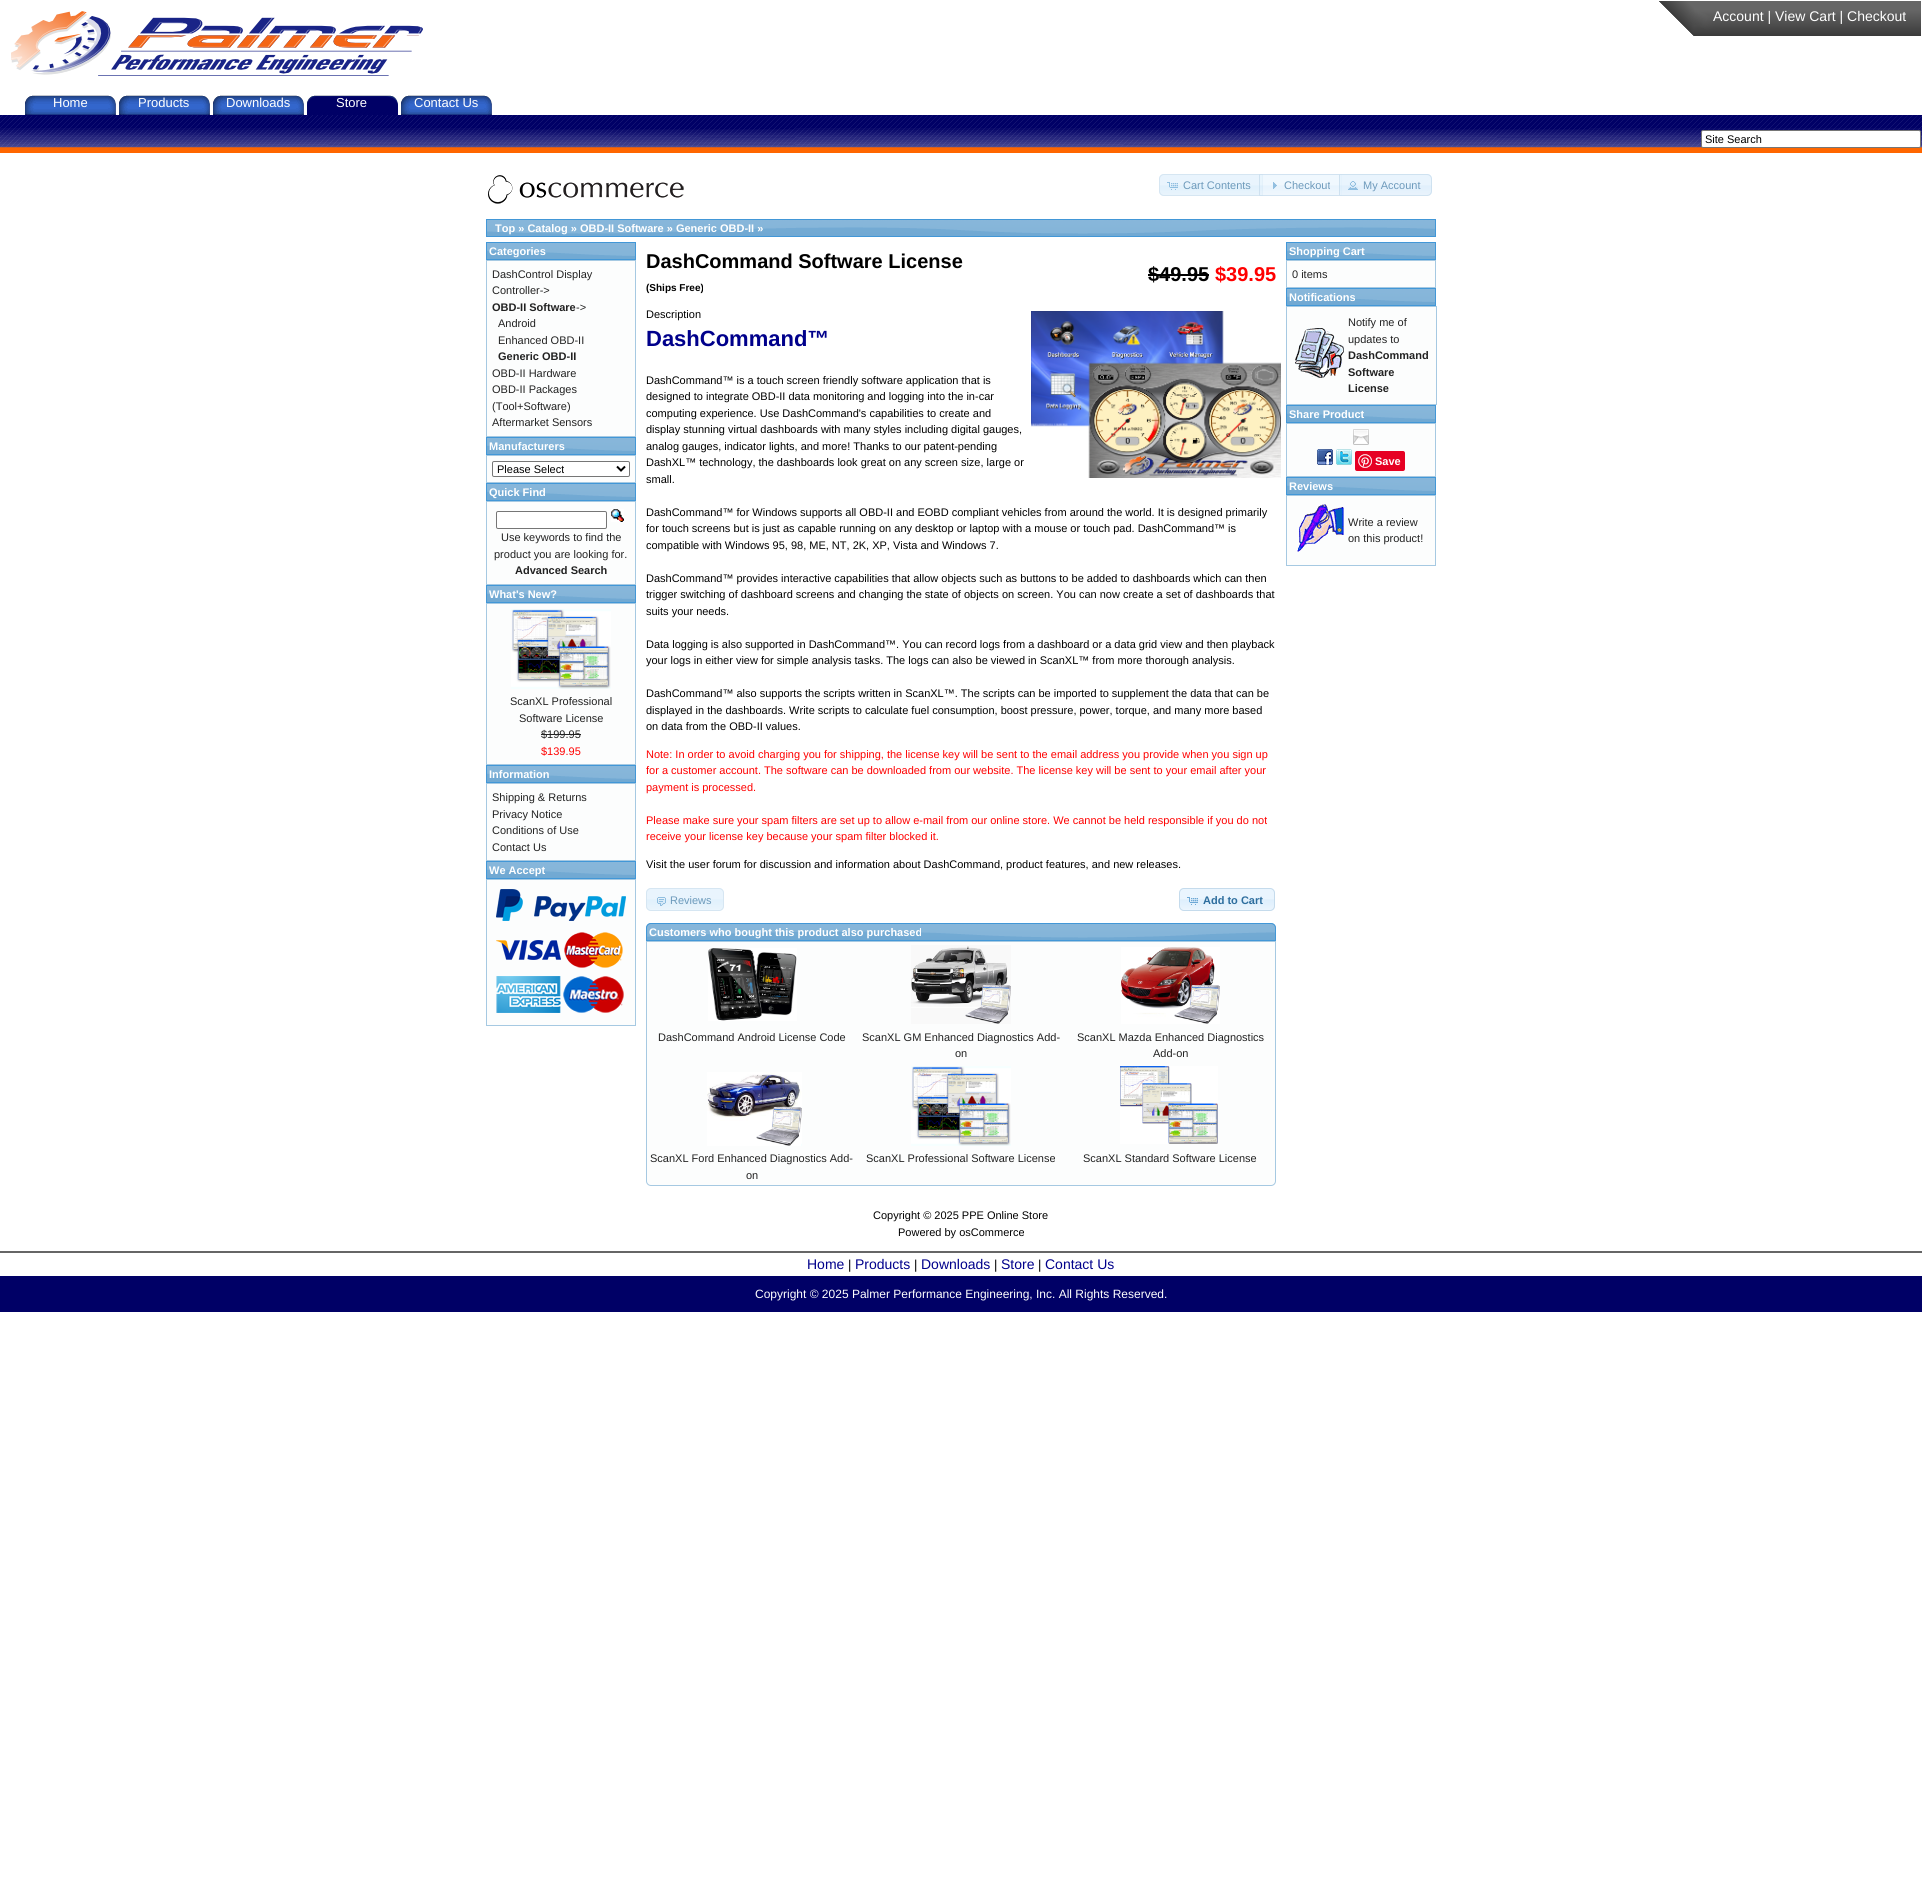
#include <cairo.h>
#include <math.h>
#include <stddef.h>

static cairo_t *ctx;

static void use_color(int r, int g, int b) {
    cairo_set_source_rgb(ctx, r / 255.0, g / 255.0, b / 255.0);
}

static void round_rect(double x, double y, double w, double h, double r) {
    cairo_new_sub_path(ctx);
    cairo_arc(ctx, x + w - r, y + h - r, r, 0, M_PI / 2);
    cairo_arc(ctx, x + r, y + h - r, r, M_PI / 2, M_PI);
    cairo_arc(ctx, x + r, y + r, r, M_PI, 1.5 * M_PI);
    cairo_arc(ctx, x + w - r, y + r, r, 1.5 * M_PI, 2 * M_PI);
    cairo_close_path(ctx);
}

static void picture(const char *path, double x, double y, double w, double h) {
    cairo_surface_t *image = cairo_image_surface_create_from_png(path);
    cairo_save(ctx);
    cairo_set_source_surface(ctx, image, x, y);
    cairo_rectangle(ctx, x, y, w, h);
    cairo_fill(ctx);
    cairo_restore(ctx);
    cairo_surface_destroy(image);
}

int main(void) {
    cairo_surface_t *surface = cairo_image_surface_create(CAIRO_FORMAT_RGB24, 1922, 1883);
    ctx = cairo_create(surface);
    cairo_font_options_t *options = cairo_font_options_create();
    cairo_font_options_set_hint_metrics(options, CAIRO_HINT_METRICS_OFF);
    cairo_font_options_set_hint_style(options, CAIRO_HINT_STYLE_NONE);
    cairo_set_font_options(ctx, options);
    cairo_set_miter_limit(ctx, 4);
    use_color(255, 255, 255);
    cairo_paint(ctx);
    picture("img1.png", 11, 11, 412, 65);
    picture("img2.png", 1658, 1, 263, 35);
    cairo_select_font_face(ctx, "Liberation Sans", CAIRO_FONT_SLANT_NORMAL, CAIRO_FONT_WEIGHT_NORMAL);
    cairo_set_font_size(ctx, 14);
    use_color(255, 255, 255);
    cairo_move_to(ctx, 1713, 21);
    cairo_show_text(ctx, "Account | View Cart | Checkout");
    picture("img3.png", 25, 95, 91, 20);
    cairo_set_font_size(ctx, 13);
    cairo_move_to(ctx, 53, 107);
    cairo_show_text(ctx, "Home");
    picture("img3.png", 119, 95, 91, 20);
    cairo_move_to(ctx, 138, 107);
    cairo_show_text(ctx, "Products");
    picture("img3.png", 213, 95, 91, 20);
    cairo_move_to(ctx, 226, 107);
    cairo_show_text(ctx, "Downloads");
    picture("img4.png", 307, 95, 91, 20);
    cairo_move_to(ctx, 336, 107);
    cairo_show_text(ctx, "Store");
    picture("img3.png", 401, 95, 91, 20);
    cairo_move_to(ctx, 414, 107);
    cairo_show_text(ctx, "Contact Us");
    picture("img5.png", 0, 115, 1922, 38);
    round_rect(1701.5, 130.5, 219, 17, 1.5);
    cairo_fill_preserve(ctx);
    use_color(118, 118, 118);
    cairo_set_line_width(ctx, 1);
    cairo_stroke(ctx);
    cairo_set_font_size(ctx, 11);
    use_color(0, 0, 0);
    cairo_move_to(ctx, 1705, 143);
    cairo_show_text(ctx, "Site Search");
    picture("img6.png", 488, 175, 196, 29);
    use_color(233, 244, 253);
    cairo_new_path(ctx);
    cairo_move_to(ctx, 1164, 174);
    cairo_line_to(ctx, 1263, 174);
    cairo_line_to(ctx, 1263, 196);
    cairo_line_to(ctx, 1164, 196);
    cairo_curve_to(ctx, 1161, 196, 1159, 194, 1159, 191);
    cairo_line_to(ctx, 1159, 179);
    cairo_curve_to(ctx, 1159, 176, 1161, 174, 1164, 174);
    cairo_close_path(ctx);
    cairo_fill(ctx);
    picture("img7.png", 1159, 185, 103, 10);
    cairo_new_path(ctx);
    cairo_move_to(ctx, 1164, 174.5);
    cairo_line_to(ctx, 1262.5, 174.5);
    cairo_line_to(ctx, 1262.5, 195.5);
    cairo_line_to(ctx, 1164, 195.5);
    cairo_curve_to(ctx, 1161.5, 195.5, 1159.5, 193.5, 1159.5, 191);
    cairo_line_to(ctx, 1159.5, 179);
    cairo_curve_to(ctx, 1159.5, 176.5, 1161.5, 174.5, 1164, 174.5);
    cairo_close_path(ctx);
    use_color(214, 230, 242);
    cairo_stroke(ctx);
    picture("img8.png", 1167, 182, 11, 8);
    use_color(109, 154, 187);
    cairo_move_to(ctx, 1183, 189);
    cairo_show_text(ctx, "Cart Contents");
    picture("img9.png", 1259, 174, 83, 22);
    cairo_rectangle(ctx, 1259.5, 174.5, 82, 21);
    cairo_set_source_rgba(ctx, 0.773, 0.859, 0.925, 0.7);
    cairo_stroke(ctx);
    picture("img10.png", 1273, 182, 4, 7);
    use_color(109, 154, 187);
    cairo_move_to(ctx, 1284, 189);
    cairo_show_text(ctx, "Checkout");
    cairo_set_source_rgba(ctx, 0.875, 0.937, 0.988, 0.7);
    cairo_new_path(ctx);
    cairo_move_to(ctx, 1339, 174);
    cairo_line_to(ctx, 1427, 174);
    cairo_curve_to(ctx, 1430, 174, 1432, 176, 1432, 179);
    cairo_line_to(ctx, 1432, 191);
    cairo_curve_to(ctx, 1432, 194, 1430, 196, 1427, 196);
    cairo_line_to(ctx, 1339, 196);
    cairo_close_path(ctx);
    cairo_fill(ctx);
    picture("img11.png", 1339, 174, 93, 22);
    cairo_new_path(ctx);
    cairo_move_to(ctx, 1339.5, 174.5);
    cairo_line_to(ctx, 1427, 174.5);
    cairo_curve_to(ctx, 1429.5, 174.5, 1431.5, 176.5, 1431.5, 179);
    cairo_line_to(ctx, 1431.5, 191);
    cairo_curve_to(ctx, 1431.5, 193.5, 1429.5, 195.5, 1427, 195.5);
    cairo_line_to(ctx, 1339.5, 195.5);
    cairo_close_path(ctx);
    cairo_set_source_rgba(ctx, 0.773, 0.859, 0.925, 0.7);
    cairo_stroke(ctx);
    picture("img12.png", 1348, 181, 10, 9);
    use_color(109, 154, 187);
    cairo_move_to(ctx, 1363, 189);
    cairo_show_text(ctx, "My Account");
    picture("img13.png", 487, 220, 948, 16);
    cairo_rectangle(ctx, 486.5, 219.5, 949, 17);
    use_color(66, 151, 215);
    cairo_stroke(ctx);
    cairo_select_font_face(ctx, "Liberation Sans", CAIRO_FONT_SLANT_NORMAL, CAIRO_FONT_WEIGHT_BOLD);
    use_color(255, 255, 255);
    cairo_move_to(ctx, 495, 232);
    cairo_show_text(ctx, "Top » Catalog » OBD-II Software » Generic OBD-II »");
    picture("img14.png", 487, 243, 148, 16);
    cairo_rectangle(ctx, 486.5, 242.5, 149, 17);
    use_color(66, 151, 215);
    cairo_stroke(ctx);
    use_color(255, 255, 255);
    cairo_move_to(ctx, 489, 255);
    cairo_show_text(ctx, "Categories");
    use_color(252, 253, 253);
    cairo_rectangle(ctx, 486.5, 260.5, 149, 176);
    cairo_fill_preserve(ctx);
    use_color(166, 201, 226);
    cairo_stroke(ctx);
    cairo_select_font_face(ctx, "Liberation Sans", CAIRO_FONT_SLANT_NORMAL, CAIRO_FONT_WEIGHT_NORMAL);
    use_color(34, 34, 34);
    cairo_move_to(ctx, 492, 278);
    cairo_show_text(ctx, "DashControl Display");
    cairo_move_to(ctx, 492, 294);
    cairo_show_text(ctx, "Controller->");
    cairo_select_font_face(ctx, "Liberation Sans", CAIRO_FONT_SLANT_NORMAL, CAIRO_FONT_WEIGHT_BOLD);
    cairo_move_to(ctx, 492, 311);
    cairo_show_text(ctx, "OBD-II Software");
    cairo_select_font_face(ctx, "Liberation Sans", CAIRO_FONT_SLANT_NORMAL, CAIRO_FONT_WEIGHT_NORMAL);
    cairo_move_to(ctx, 576, 311);
    cairo_show_text(ctx, "->");
    cairo_move_to(ctx, 498, 327);
    cairo_show_text(ctx, "Android");
    cairo_move_to(ctx, 498, 344);
    cairo_show_text(ctx, "Enhanced OBD-II");
    cairo_select_font_face(ctx, "Liberation Sans", CAIRO_FONT_SLANT_NORMAL, CAIRO_FONT_WEIGHT_BOLD);
    cairo_move_to(ctx, 498, 360);
    cairo_show_text(ctx, "Generic OBD-II");
    cairo_select_font_face(ctx, "Liberation Sans", CAIRO_FONT_SLANT_NORMAL, CAIRO_FONT_WEIGHT_NORMAL);
    cairo_move_to(ctx, 492, 377);
    cairo_show_text(ctx, "OBD-II Hardware");
    cairo_move_to(ctx, 492, 393);
    cairo_show_text(ctx, "OBD-II Packages");
    cairo_move_to(ctx, 492, 410);
    cairo_show_text(ctx, "(Tool+Software)");
    cairo_move_to(ctx, 492, 426);
    cairo_show_text(ctx, "Aftermarket Sensors");
    picture("img14.png", 487, 438, 148, 16);
    cairo_rectangle(ctx, 486.5, 437.5, 149, 17);
    use_color(66, 151, 215);
    cairo_stroke(ctx);
    cairo_select_font_face(ctx, "Liberation Sans", CAIRO_FONT_SLANT_NORMAL, CAIRO_FONT_WEIGHT_BOLD);
    use_color(255, 255, 255);
    cairo_move_to(ctx, 489, 450);
    cairo_show_text(ctx, "Manufacturers");
    use_color(252, 253, 253);
    cairo_rectangle(ctx, 486.5, 455.5, 149, 27);
    cairo_fill_preserve(ctx);
    use_color(166, 201, 226);
    cairo_stroke(ctx);
    use_color(255, 255, 255);
    round_rect(492.5, 461.5, 137, 15, 1.5);
    cairo_fill_preserve(ctx);
    use_color(118, 118, 118);
    cairo_stroke(ctx);
    cairo_new_path(ctx);
    cairo_move_to(ctx, 617, 466.5);
    cairo_line_to(ctx, 621, 470.5);
    cairo_line_to(ctx, 625, 466.5);
    use_color(0, 0, 0);
    cairo_set_line_width(ctx, 2);
    cairo_stroke(ctx);
    cairo_select_font_face(ctx, "Liberation Sans", CAIRO_FONT_SLANT_NORMAL, CAIRO_FONT_WEIGHT_NORMAL);
    cairo_move_to(ctx, 497, 473);
    cairo_show_text(ctx, "Please Select");
    picture("img14.png", 487, 484, 148, 16);
    cairo_rectangle(ctx, 486.5, 483.5, 149, 17);
    use_color(66, 151, 215);
    cairo_set_line_width(ctx, 1);
    cairo_stroke(ctx);
    cairo_select_font_face(ctx, "Liberation Sans", CAIRO_FONT_SLANT_NORMAL, CAIRO_FONT_WEIGHT_BOLD);
    use_color(255, 255, 255);
    cairo_move_to(ctx, 489, 496);
    cairo_show_text(ctx, "Quick Find");
    use_color(252, 253, 253);
    cairo_rectangle(ctx, 486.5, 501.5, 149, 83);
    cairo_fill_preserve(ctx);
    use_color(166, 201, 226);
    cairo_stroke(ctx);
    use_color(255, 255, 255);
    round_rect(496.5, 511.5, 110, 17, 1.5);
    cairo_fill_preserve(ctx);
    use_color(118, 118, 118);
    cairo_stroke(ctx);
    picture("img15.png", 611, 509, 13, 13);
    cairo_select_font_face(ctx, "Liberation Sans", CAIRO_FONT_SLANT_NORMAL, CAIRO_FONT_WEIGHT_NORMAL);
    use_color(34, 34, 34);
    cairo_move_to(ctx, 501, 541);
    cairo_show_text(ctx, "Use keywords to find the");
    cairo_move_to(ctx, 494, 558);
    cairo_show_text(ctx, "product you are looking for.");
    cairo_select_font_face(ctx, "Liberation Sans", CAIRO_FONT_SLANT_NORMAL, CAIRO_FONT_WEIGHT_BOLD);
    cairo_move_to(ctx, 515, 574);
    cairo_show_text(ctx, "Advanced Search");
    picture("img14.png", 487, 586, 148, 16);
    cairo_rectangle(ctx, 486.5, 585.5, 149, 17);
    use_color(66, 151, 215);
    cairo_stroke(ctx);
    use_color(255, 255, 255);
    cairo_move_to(ctx, 489, 598);
    cairo_show_text(ctx, "What's New?");
    use_color(252, 253, 253);
    cairo_rectangle(ctx, 486.5, 603.5, 149, 161);
    cairo_fill_preserve(ctx);
    use_color(166, 201, 226);
    cairo_stroke(ctx);
    picture("img16.png", 511, 609, 100, 80);
    cairo_select_font_face(ctx, "Liberation Sans", CAIRO_FONT_SLANT_NORMAL, CAIRO_FONT_WEIGHT_NORMAL);
    use_color(34, 34, 34);
    cairo_move_to(ctx, 510, 705);
    cairo_show_text(ctx, "ScanXL Professional");
    cairo_move_to(ctx, 519, 722);
    cairo_show_text(ctx, "Software License");
    cairo_move_to(ctx, 541, 738);
    cairo_show_text(ctx, "$199.95");
    cairo_rectangle(ctx, 541, 734, 40, 1);
    cairo_fill(ctx);
    use_color(255, 0, 0);
    cairo_move_to(ctx, 541, 755);
    cairo_show_text(ctx, "$139.95");
    picture("img14.png", 487, 766, 148, 16);
    cairo_rectangle(ctx, 486.5, 765.5, 149, 17);
    use_color(66, 151, 215);
    cairo_stroke(ctx);
    cairo_select_font_face(ctx, "Liberation Sans", CAIRO_FONT_SLANT_NORMAL, CAIRO_FONT_WEIGHT_BOLD);
    use_color(255, 255, 255);
    cairo_move_to(ctx, 489, 778);
    cairo_show_text(ctx, "Information");
    use_color(252, 253, 253);
    cairo_rectangle(ctx, 486.5, 783.5, 149, 77);
    cairo_fill_preserve(ctx);
    use_color(166, 201, 226);
    cairo_stroke(ctx);
    cairo_select_font_face(ctx, "Liberation Sans", CAIRO_FONT_SLANT_NORMAL, CAIRO_FONT_WEIGHT_NORMAL);
    use_color(34, 34, 34);
    cairo_move_to(ctx, 492, 801);
    cairo_show_text(ctx, "Shipping & Returns");
    cairo_move_to(ctx, 492, 818);
    cairo_show_text(ctx, "Privacy Notice");
    cairo_move_to(ctx, 492, 834);
    cairo_show_text(ctx, "Conditions of Use");
    cairo_move_to(ctx, 492, 851);
    cairo_show_text(ctx, "Contact Us");
    picture("img14.png", 487, 862, 148, 16);
    cairo_rectangle(ctx, 486.5, 861.5, 149, 17);
    use_color(66, 151, 215);
    cairo_stroke(ctx);
    cairo_select_font_face(ctx, "Liberation Sans", CAIRO_FONT_SLANT_NORMAL, CAIRO_FONT_WEIGHT_BOLD);
    use_color(255, 255, 255);
    cairo_move_to(ctx, 489, 874);
    cairo_show_text(ctx, "We Accept");
    use_color(252, 253, 253);
    cairo_rectangle(ctx, 486.5, 879.5, 149, 146);
    cairo_fill_preserve(ctx);
    use_color(166, 201, 226);
    cairo_stroke(ctx);
    picture("img17.png", 496, 889, 130, 32);
    picture("img18.png", 496, 940, 65, 20);
    picture("img19.png", 564, 932, 59, 36);
    picture("img20.png", 496, 976, 65, 37);
    picture("img21.png", 563, 976, 61, 37);
    cairo_set_font_size(ctx, 20);
    use_color(0, 0, 0);
    cairo_move_to(ctx, 646, 268);
    cairo_show_text(ctx, "DashCommand Software License");
    cairo_set_font_size(ctx, 10);
    cairo_move_to(ctx, 646, 291);
    cairo_show_text(ctx, "(Ships Free)");
    cairo_set_font_size(ctx, 20);
    cairo_move_to(ctx, 1148, 281);
    cairo_show_text(ctx, "$49.95");
    cairo_rectangle(ctx, 1148, 274, 61, 2);
    cairo_fill(ctx);
    use_color(255, 0, 0);
    cairo_move_to(ctx, 1215, 281);
    cairo_show_text(ctx, "$39.95");
    cairo_select_font_face(ctx, "Liberation Sans", CAIRO_FONT_SLANT_NORMAL, CAIRO_FONT_WEIGHT_NORMAL);
    cairo_set_font_size(ctx, 11);
    use_color(0, 0, 0);
    cairo_move_to(ctx, 646, 318);
    cairo_show_text(ctx, "Description");
    cairo_select_font_face(ctx, "Liberation Sans", CAIRO_FONT_SLANT_NORMAL, CAIRO_FONT_WEIGHT_BOLD);
    cairo_set_font_size(ctx, 22);
    use_color(0, 0, 139);
    cairo_move_to(ctx, 646, 346);
    cairo_show_text(ctx, "DashCommand™");
    cairo_select_font_face(ctx, "Liberation Sans", CAIRO_FONT_SLANT_NORMAL, CAIRO_FONT_WEIGHT_NORMAL);
    cairo_set_font_size(ctx, 11);
    use_color(0, 0, 0);
    cairo_move_to(ctx, 646, 384);
    cairo_show_text(ctx, "DashCommand™ is a touch screen friendly software application that is");
    cairo_move_to(ctx, 646, 400);
    cairo_show_text(ctx, "designed to integrate OBD-II data monitoring and logging into the in-car");
    cairo_move_to(ctx, 646, 417);
    cairo_show_text(ctx, "computing experience. Use DashCommand's capabilities to create and");
    cairo_move_to(ctx, 646, 433);
    cairo_show_text(ctx, "display stunning virtual dashboards with many styles including digital gauges,");
    cairo_move_to(ctx, 646, 450);
    cairo_show_text(ctx, "analog gauges, indicator lights, and more! Thanks to our patent-pending");
    cairo_move_to(ctx, 646, 466);
    cairo_show_text(ctx, "DashXL™ technology, the dashboards look great on any screen size, large or");
    cairo_move_to(ctx, 646, 483);
    cairo_show_text(ctx, "small.");
    cairo_move_to(ctx, 646, 516);
    cairo_show_text(ctx, "DashCommand™ for Windows supports all OBD-II and EOBD compliant vehicles from around the world. It is designed primarily");
    cairo_move_to(ctx, 646, 532);
    cairo_show_text(ctx, "for touch screens but is just as capable running on any desktop or laptop with a mouse or touch pad. DashCommand™ is");
    cairo_move_to(ctx, 646, 549);
    cairo_show_text(ctx, "compatible with Windows 95, 98, ME, NT, 2K, XP, Vista and Windows 7.");
    cairo_move_to(ctx, 646, 582);
    cairo_show_text(ctx, "DashCommand™ provides interactive capabilities that allow objects such as buttons to be added to dashboards which can then");
    cairo_move_to(ctx, 646, 598);
    cairo_show_text(ctx, "trigger switching of dashboard screens and changing the state of objects on screen. You can now create a set of dashboards that");
    cairo_move_to(ctx, 646, 615);
    cairo_show_text(ctx, "suits your needs.");
    cairo_move_to(ctx, 646, 648);
    cairo_show_text(ctx, "Data logging is also supported in DashCommand™. You can record logs from a dashboard or a data grid view and then playback");
    cairo_move_to(ctx, 646, 664);
    cairo_show_text(ctx, "your logs in either view for simple analysis tasks. The logs can also be viewed in ScanXL™ from more thorough analysis.");
    cairo_move_to(ctx, 646, 697);
    cairo_show_text(ctx, "DashCommand™ also supports the scripts written in ScanXL™. The scripts can be imported to supplement the data that can be");
    cairo_move_to(ctx, 646, 714);
    cairo_show_text(ctx, "displayed in the dashboards. Write scripts to calculate fuel consumption, boost pressure, power, torque, and many more based");
    cairo_move_to(ctx, 646, 730);
    cairo_show_text(ctx, "on data from the OBD-II values.");
    use_color(255, 0, 0);
    cairo_move_to(ctx, 646, 758);
    cairo_show_text(ctx, "Note: In order to avoid charging you for shipping, the license key will be sent to the email address you provide when you sign up");
    cairo_move_to(ctx, 646, 774);
    cairo_show_text(ctx, "for a customer account. The software can be downloaded from our website. The license key will be sent to your email after your");
    cairo_move_to(ctx, 646, 791);
    cairo_show_text(ctx, "payment is processed.");
    cairo_move_to(ctx, 646, 824);
    cairo_show_text(ctx, "Please make sure your spam filters are set up to allow e-mail from our online store. We cannot be held responsible if you do not");
    cairo_move_to(ctx, 646, 840);
    cairo_show_text(ctx, "receive your license key because your spam filter blocked it.");
    use_color(0, 0, 0);
    cairo_move_to(ctx, 646, 868);
    cairo_show_text(ctx, "Visit the user forum for discussion and information about DashCommand, product features, and new releases.");
    picture("img22.png", 1031, 311, 250, 167);
    use_color(233, 244, 253);
    round_rect(646, 888, 78, 23, 5);
    cairo_fill(ctx);
    picture("img23.png", 646, 899, 78, 11);
    round_rect(646.5, 888.5, 77, 22, 4.5);
    use_color(214, 230, 242);
    cairo_stroke(ctx);
    picture("img24.png", 657, 897, 9, 9);
    use_color(109, 154, 187);
    cairo_move_to(ctx, 670, 904);
    cairo_show_text(ctx, "Reviews");
    picture("img25.png", 1179, 888, 96, 23);
    round_rect(1179.5, 888.5, 95, 22, 4.5);
    use_color(197, 219, 236);
    cairo_stroke(ctx);
    picture("img26.png", 1187, 897, 11, 8);
    cairo_select_font_face(ctx, "Liberation Sans", CAIRO_FONT_SLANT_NORMAL, CAIRO_FONT_WEIGHT_BOLD);
    use_color(46, 110, 158);
    cairo_move_to(ctx, 1203, 904);
    cairo_show_text(ctx, "Add to Cart");
    picture("img27.png", 646, 923, 630, 17);
    cairo_new_path(ctx);
    cairo_move_to(ctx, 651, 923.5);
    cairo_line_to(ctx, 1271, 923.5);
    cairo_curve_to(ctx, 1273.5, 923.5, 1275.5, 925.5, 1275.5, 928);
    cairo_line_to(ctx, 1275.5, 940.5);
    cairo_line_to(ctx, 646.5, 940.5);
    cairo_line_to(ctx, 646.5, 928);
    cairo_curve_to(ctx, 646.5, 925.5, 648.5, 923.5, 651, 923.5);
    cairo_close_path(ctx);
    use_color(66, 151, 215);
    cairo_stroke(ctx);
    use_color(255, 255, 255);
    cairo_move_to(ctx, 649, 936);
    cairo_show_text(ctx, "Customers who bought this product also purchased");
    use_color(252, 253, 253);
    cairo_new_path(ctx);
    cairo_move_to(ctx, 646.5, 941.5);
    cairo_line_to(ctx, 1275.5, 941.5);
    cairo_line_to(ctx, 1275.5, 1181);
    cairo_curve_to(ctx, 1275.5, 1183.5, 1273.5, 1185.5, 1271, 1185.5);
    cairo_line_to(ctx, 651, 1185.5);
    cairo_curve_to(ctx, 648.5, 1185.5, 646.5, 1183.5, 646.5, 1181);
    cairo_close_path(ctx);
    cairo_fill_preserve(ctx);
    use_color(166, 201, 226);
    cairo_stroke(ctx);
    picture("img28.png", 708, 948, 89, 73);
    cairo_select_font_face(ctx, "Liberation Sans", CAIRO_FONT_SLANT_NORMAL, CAIRO_FONT_WEIGHT_NORMAL);
    use_color(34, 34, 34);
    cairo_move_to(ctx, 658, 1041);
    cairo_show_text(ctx, "DashCommand Android License Code");
    picture("img29.png", 911, 945, 100, 79);
    cairo_move_to(ctx, 862, 1041);
    cairo_show_text(ctx, "ScanXL GM Enhanced Diagnostics Add-");
    cairo_move_to(ctx, 955, 1057);
    cairo_show_text(ctx, "on");
    picture("img30.png", 1121, 947, 99, 77);
    cairo_move_to(ctx, 1077, 1041);
    cairo_show_text(ctx, "ScanXL Mazda Enhanced Diagnostics");
    cairo_move_to(ctx, 1153, 1057);
    cairo_show_text(ctx, "Add-on");
    picture("img31.png", 707, 1072, 95, 74);
    cairo_move_to(ctx, 650, 1162);
    cairo_show_text(ctx, "ScanXL Ford Enhanced Diagnostics Add-");
    cairo_move_to(ctx, 746, 1179);
    cairo_show_text(ctx, "on");
    picture("img16.png", 911, 1066, 100, 80);
    cairo_move_to(ctx, 866, 1162);
    cairo_show_text(ctx, "ScanXL Professional Software License");
    picture("img32.png", 1120, 1066, 98, 78);
    cairo_move_to(ctx, 1083, 1162);
    cairo_show_text(ctx, "ScanXL Standard Software License");
    picture("img14.png", 1287, 243, 148, 16);
    cairo_rectangle(ctx, 1286.5, 242.5, 149, 17);
    use_color(66, 151, 215);
    cairo_stroke(ctx);
    cairo_select_font_face(ctx, "Liberation Sans", CAIRO_FONT_SLANT_NORMAL, CAIRO_FONT_WEIGHT_BOLD);
    use_color(255, 255, 255);
    cairo_move_to(ctx, 1289, 255);
    cairo_show_text(ctx, "Shopping Cart");
    use_color(252, 253, 253);
    cairo_rectangle(ctx, 1286.5, 260.5, 149, 27);
    cairo_fill_preserve(ctx);
    use_color(166, 201, 226);
    cairo_stroke(ctx);
    cairo_select_font_face(ctx, "Liberation Sans", CAIRO_FONT_SLANT_NORMAL, CAIRO_FONT_WEIGHT_NORMAL);
    use_color(34, 34, 34);
    cairo_move_to(ctx, 1292, 278);
    cairo_show_text(ctx, "0 items");
    picture("img14.png", 1287, 289, 148, 16);
    cairo_rectangle(ctx, 1286.5, 288.5, 149, 17);
    use_color(66, 151, 215);
    cairo_stroke(ctx);
    cairo_select_font_face(ctx, "Liberation Sans", CAIRO_FONT_SLANT_NORMAL, CAIRO_FONT_WEIGHT_BOLD);
    use_color(255, 255, 255);
    cairo_move_to(ctx, 1289, 301);
    cairo_show_text(ctx, "Notifications");
    use_color(252, 253, 253);
    cairo_rectangle(ctx, 1286.5, 306.5, 150, 98);
    cairo_fill_preserve(ctx);
    use_color(166, 201, 226);
    cairo_stroke(ctx);
    picture("img33.png", 1295, 328, 49, 50);
    cairo_select_font_face(ctx, "Liberation Sans", CAIRO_FONT_SLANT_NORMAL, CAIRO_FONT_WEIGHT_NORMAL);
    use_color(34, 34, 34);
    cairo_move_to(ctx, 1348, 326);
    cairo_show_text(ctx, "Notify me of");
    cairo_move_to(ctx, 1348, 343);
    cairo_show_text(ctx, "updates to");
    cairo_select_font_face(ctx, "Liberation Sans", CAIRO_FONT_SLANT_NORMAL, CAIRO_FONT_WEIGHT_BOLD);
    cairo_move_to(ctx, 1348, 359);
    cairo_show_text(ctx, "DashCommand");
    cairo_move_to(ctx, 1348, 376);
    cairo_show_text(ctx, "Software");
    cairo_move_to(ctx, 1348, 392);
    cairo_show_text(ctx, "License");
    picture("img14.png", 1287, 406, 148, 16);
    cairo_rectangle(ctx, 1286.5, 405.5, 149, 17);
    use_color(66, 151, 215);
    cairo_stroke(ctx);
    use_color(255, 255, 255);
    cairo_move_to(ctx, 1289, 418);
    cairo_show_text(ctx, "Share Product");
    use_color(252, 253, 253);
    cairo_rectangle(ctx, 1286.5, 423.5, 149, 53);
    cairo_fill_preserve(ctx);
    use_color(166, 201, 226);
    cairo_stroke(ctx);
    picture("img34.png", 1353, 429, 16, 16);
    picture("img35.png", 1317, 449, 16, 16);
    picture("img36.png", 1336, 449, 16, 16);
    use_color(230, 0, 35);
    round_rect(1355, 451, 50, 20, 2);
    cairo_fill(ctx);
    picture("img37.png", 1358, 454, 14, 14);
    use_color(255, 255, 255);
    cairo_move_to(ctx, 1375, 465);
    cairo_show_text(ctx, "Save");
    picture("img14.png", 1287, 478, 148, 16);
    cairo_rectangle(ctx, 1286.5, 477.5, 149, 17);
    use_color(66, 151, 215);
    cairo_stroke(ctx);
    use_color(255, 255, 255);
    cairo_move_to(ctx, 1289, 490);
    cairo_show_text(ctx, "Reviews");
    use_color(252, 253, 253);
    cairo_rectangle(ctx, 1286.5, 495.5, 149, 70);
    cairo_fill_preserve(ctx);
    use_color(166, 201, 226);
    cairo_stroke(ctx);
    picture("img38.png", 1297, 504, 47, 48);
    cairo_select_font_face(ctx, "Liberation Sans", CAIRO_FONT_SLANT_NORMAL, CAIRO_FONT_WEIGHT_NORMAL);
    use_color(34, 34, 34);
    cairo_move_to(ctx, 1348, 526);
    cairo_show_text(ctx, "Write a review");
    cairo_move_to(ctx, 1348, 542);
    cairo_show_text(ctx, "on this product!");
    use_color(0, 0, 0);
    cairo_move_to(ctx, 873, 1219);
    cairo_show_text(ctx, "Copyright © 2025 PPE Online Store");
    cairo_move_to(ctx, 898, 1236);
    cairo_show_text(ctx, "Powered by osCommerce");
    use_color(102, 102, 102);
    cairo_rectangle(ctx, 0, 1251, 1922, 2);
    cairo_fill(ctx);
    cairo_set_font_size(ctx, 14);
    use_color(0, 0, 139);
    cairo_move_to(ctx, 807, 1269);
    cairo_show_text(ctx, "Home");
    cairo_set_font_size(ctx, 13);
    use_color(0, 0, 0);
    cairo_move_to(ctx, 848, 1269);
    cairo_show_text(ctx, "|");
    cairo_set_font_size(ctx, 14);
    use_color(0, 0, 139);
    cairo_move_to(ctx, 855, 1269);
    cairo_show_text(ctx, "Products");
    cairo_set_font_size(ctx, 13);
    use_color(0, 0, 0);
    cairo_move_to(ctx, 914, 1269);
    cairo_show_text(ctx, "|");
    cairo_set_font_size(ctx, 14);
    use_color(0, 0, 139);
    cairo_move_to(ctx, 921, 1269);
    cairo_show_text(ctx, "Downloads");
    cairo_set_font_size(ctx, 13);
    use_color(0, 0, 0);
    cairo_move_to(ctx, 994, 1269);
    cairo_show_text(ctx, "|");
    cairo_set_font_size(ctx, 14);
    use_color(0, 0, 139);
    cairo_move_to(ctx, 1001, 1269);
    cairo_show_text(ctx, "Store");
    cairo_set_font_size(ctx, 13);
    use_color(0, 0, 0);
    cairo_move_to(ctx, 1038, 1269);
    cairo_show_text(ctx, "|");
    cairo_set_font_size(ctx, 14);
    use_color(0, 0, 139);
    cairo_move_to(ctx, 1045, 1269);
    cairo_show_text(ctx, "Contact Us");
    use_color(0, 0, 102);
    cairo_rectangle(ctx, 0, 1276, 1922, 36);
    cairo_fill(ctx);
    cairo_set_font_size(ctx, 12);
    use_color(255, 255, 255);
    cairo_move_to(ctx, 755, 1298);
    cairo_show_text(ctx, "Copyright © 2025 Palmer Performance Engineering, Inc. All Rights Reserved.");
    cairo_surface_write_to_png(surface, "result.png");
    cairo_font_options_destroy(options);
    cairo_destroy(ctx);
    cairo_surface_destroy(surface);
    return 0;
}
